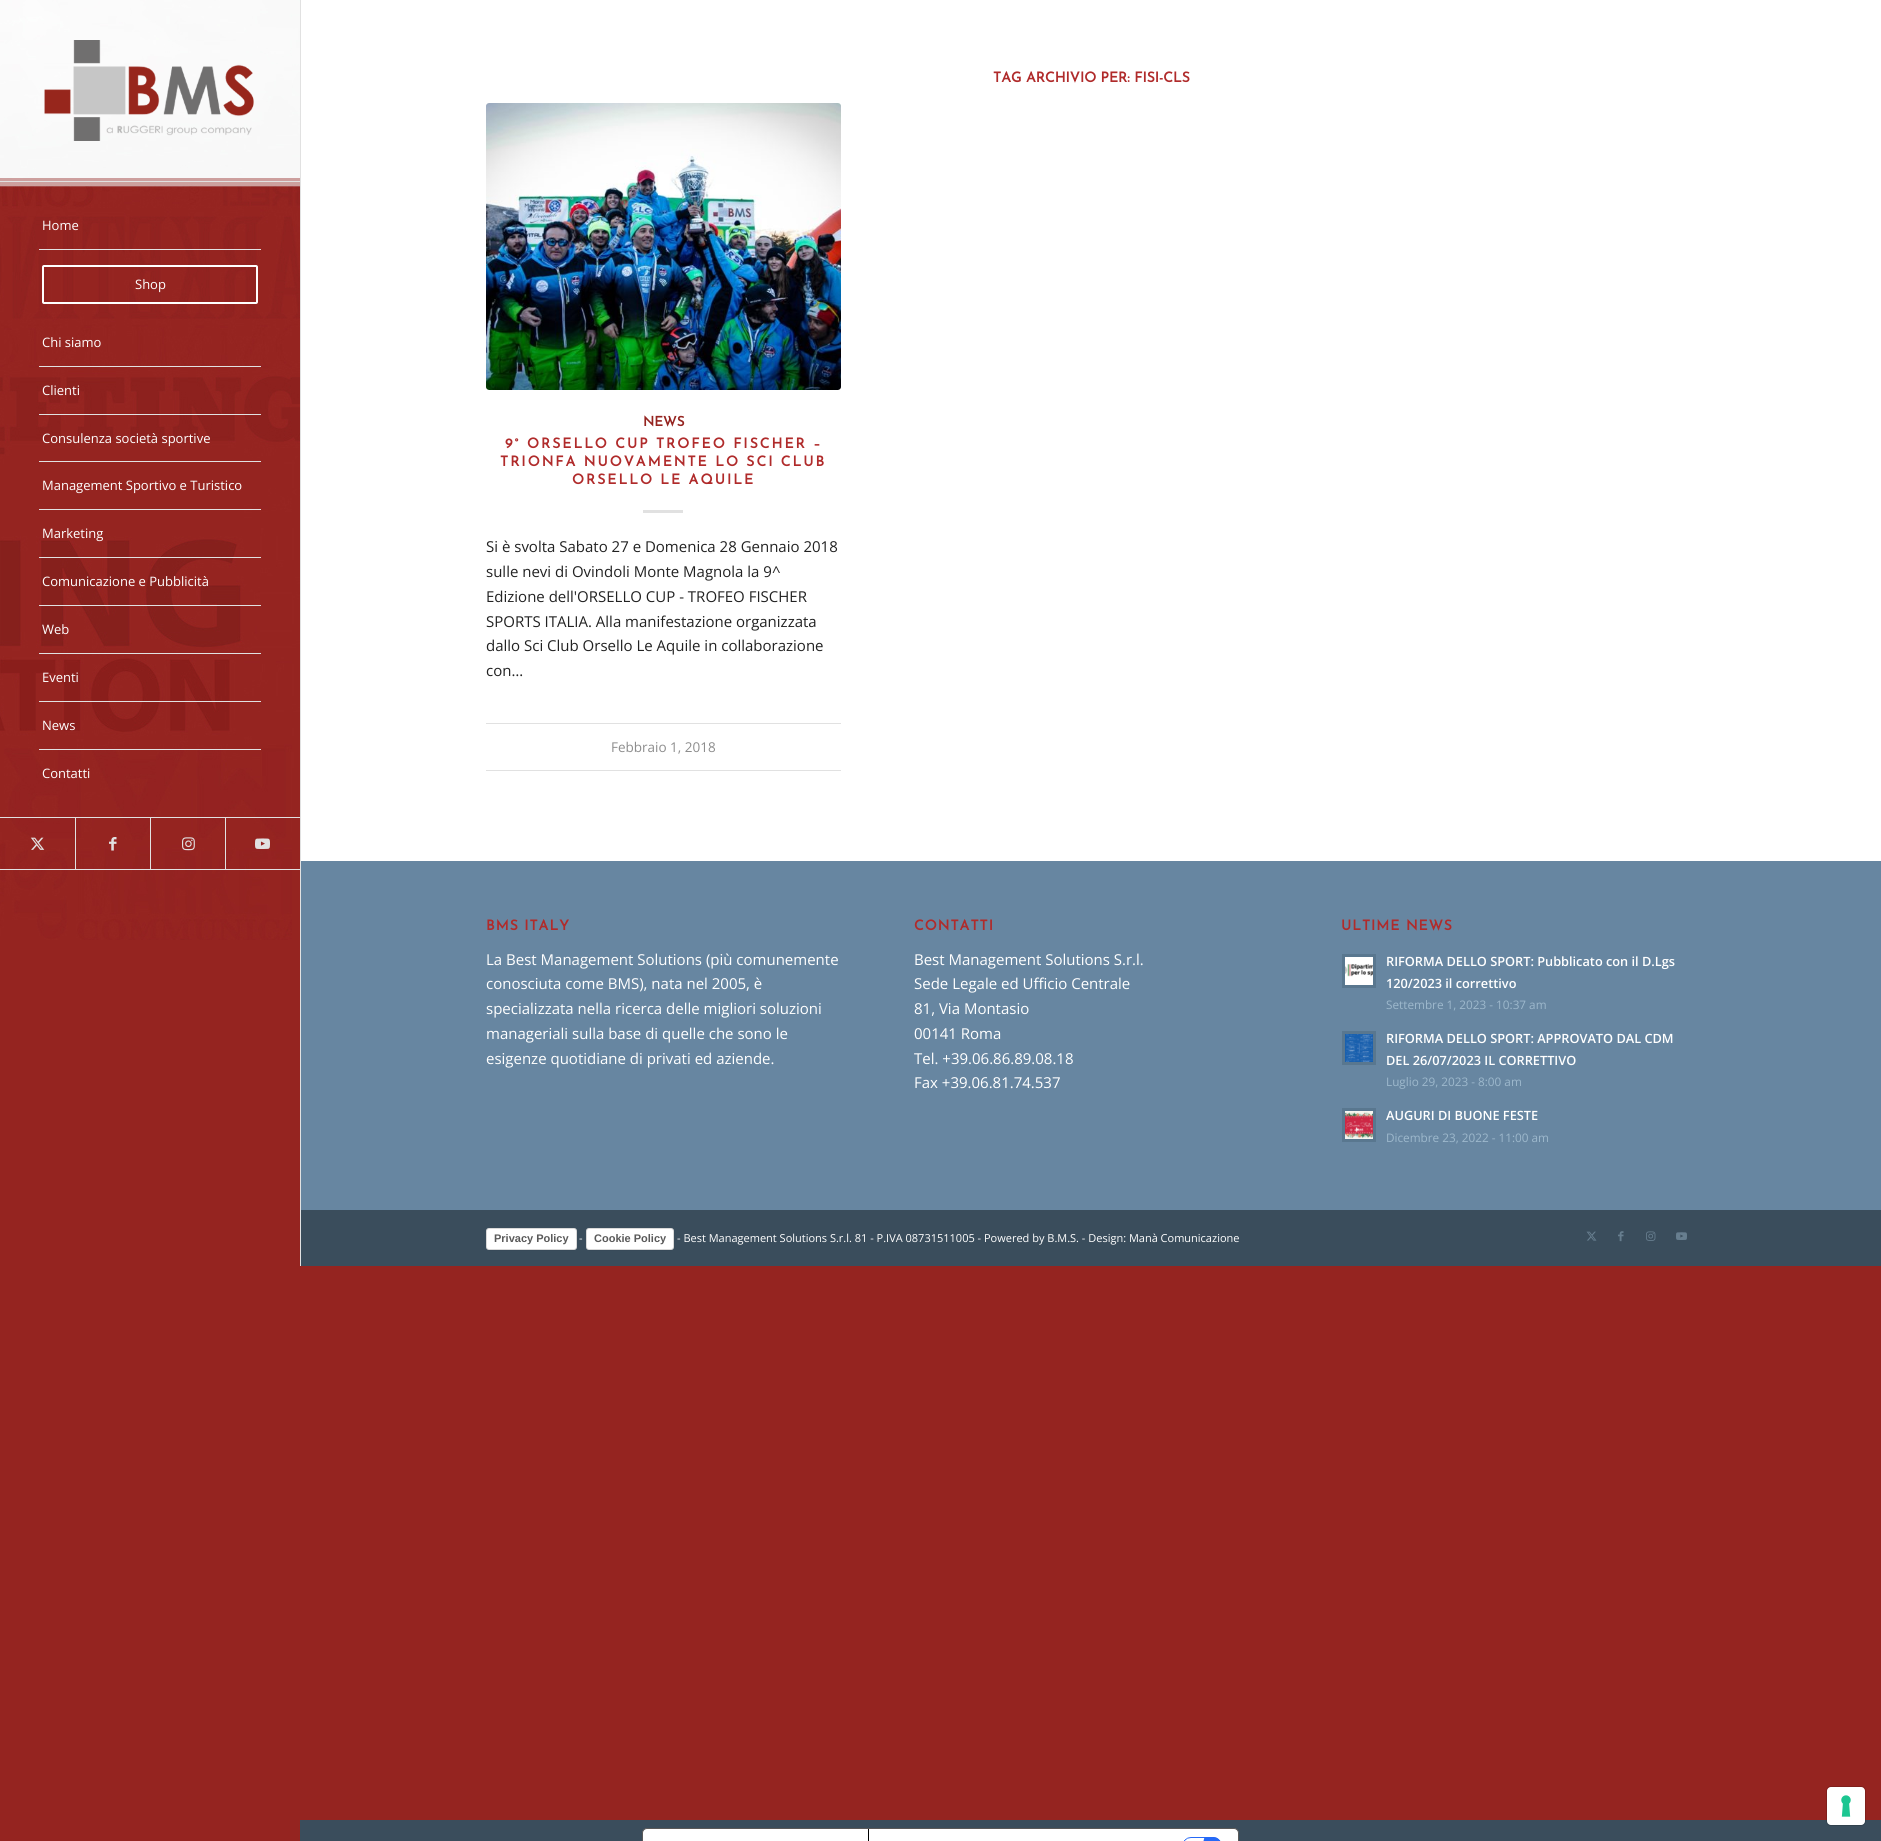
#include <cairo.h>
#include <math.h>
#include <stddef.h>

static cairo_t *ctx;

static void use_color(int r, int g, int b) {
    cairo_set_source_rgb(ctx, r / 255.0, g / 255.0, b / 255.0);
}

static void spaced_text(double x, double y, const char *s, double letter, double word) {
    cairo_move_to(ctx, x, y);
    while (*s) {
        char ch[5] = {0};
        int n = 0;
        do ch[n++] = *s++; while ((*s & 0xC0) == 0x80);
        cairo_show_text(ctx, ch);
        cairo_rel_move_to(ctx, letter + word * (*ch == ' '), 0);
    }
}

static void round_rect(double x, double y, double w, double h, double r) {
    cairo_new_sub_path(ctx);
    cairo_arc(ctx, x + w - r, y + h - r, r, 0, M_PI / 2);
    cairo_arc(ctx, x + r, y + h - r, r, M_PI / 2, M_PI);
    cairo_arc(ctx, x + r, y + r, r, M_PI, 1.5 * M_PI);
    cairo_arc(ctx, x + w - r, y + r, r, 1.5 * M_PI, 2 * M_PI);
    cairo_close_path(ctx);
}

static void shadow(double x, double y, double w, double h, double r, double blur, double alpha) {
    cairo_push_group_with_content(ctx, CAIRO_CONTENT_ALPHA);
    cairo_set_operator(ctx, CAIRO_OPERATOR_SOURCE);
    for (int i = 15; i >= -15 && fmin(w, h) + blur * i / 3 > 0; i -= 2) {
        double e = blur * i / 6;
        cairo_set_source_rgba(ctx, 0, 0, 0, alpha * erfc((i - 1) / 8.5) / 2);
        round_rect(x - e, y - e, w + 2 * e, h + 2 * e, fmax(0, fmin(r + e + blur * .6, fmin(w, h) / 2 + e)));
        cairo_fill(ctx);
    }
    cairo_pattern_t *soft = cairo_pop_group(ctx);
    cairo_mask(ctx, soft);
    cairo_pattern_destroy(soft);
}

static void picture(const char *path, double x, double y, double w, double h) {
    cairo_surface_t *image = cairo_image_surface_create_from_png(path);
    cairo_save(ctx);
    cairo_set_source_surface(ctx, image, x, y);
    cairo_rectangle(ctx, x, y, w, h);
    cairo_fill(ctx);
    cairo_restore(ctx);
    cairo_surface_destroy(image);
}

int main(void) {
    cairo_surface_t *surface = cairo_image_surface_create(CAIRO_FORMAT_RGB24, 1881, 1841);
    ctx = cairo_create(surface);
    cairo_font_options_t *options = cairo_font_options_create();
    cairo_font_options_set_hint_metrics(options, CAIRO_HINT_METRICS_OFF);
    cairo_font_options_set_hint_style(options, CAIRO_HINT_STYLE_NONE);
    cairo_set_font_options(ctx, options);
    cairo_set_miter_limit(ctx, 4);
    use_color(58, 77, 92);
    cairo_paint(ctx);
    use_color(149, 36, 32);
    cairo_rectangle(ctx, 300, 1266, 1581, 554);
    cairo_fill(ctx);
    cairo_rectangle(ctx, 0, 940, 300, 901);
    cairo_fill(ctx);
    picture("img1.png", 0, 0, 300, 940);
    use_color(225, 225, 225);
    cairo_rectangle(ctx, 0, 869, 300, 1);
    cairo_fill(ctx);
    cairo_rectangle(ctx, 0, 181, 300, 1);
    cairo_fill(ctx);
    picture("img2.png", 44, 40, 210, 101);
    cairo_rectangle(ctx, 39, 249, 222, 1);
    cairo_fill(ctx);
    cairo_select_font_face(ctx, "Open Sans", CAIRO_FONT_SLANT_NORMAL, CAIRO_FONT_WEIGHT_NORMAL);
    cairo_set_font_size(ctx, 13);
    use_color(255, 255, 255);
    cairo_move_to(ctx, 42, 230);
    cairo_show_text(ctx, "Home");
    round_rect(43, 266, 214, 37, 1);
    cairo_stroke(ctx);
    cairo_move_to(ctx, 135, 289);
    cairo_show_text(ctx, "Shop");
    use_color(225, 225, 225);
    cairo_rectangle(ctx, 39, 366, 222, 1);
    cairo_fill(ctx);
    use_color(255, 255, 255);
    cairo_move_to(ctx, 42, 347);
    cairo_show_text(ctx, "Chi siamo");
    use_color(225, 225, 225);
    cairo_rectangle(ctx, 39, 414, 222, 1);
    cairo_fill(ctx);
    use_color(255, 255, 255);
    cairo_move_to(ctx, 42, 395);
    cairo_show_text(ctx, "Clienti");
    use_color(225, 225, 225);
    cairo_rectangle(ctx, 39, 461, 222, 1);
    cairo_fill(ctx);
    use_color(255, 255, 255);
    cairo_move_to(ctx, 42, 443);
    cairo_show_text(ctx, "Consulenza società sportive");
    use_color(225, 225, 225);
    cairo_rectangle(ctx, 39, 509, 222, 1);
    cairo_fill(ctx);
    use_color(255, 255, 255);
    cairo_move_to(ctx, 42, 490);
    cairo_show_text(ctx, "Management Sportivo e Turistico");
    use_color(225, 225, 225);
    cairo_rectangle(ctx, 39, 557, 222, 1);
    cairo_fill(ctx);
    use_color(255, 255, 255);
    cairo_move_to(ctx, 42, 538);
    cairo_show_text(ctx, "Marketing");
    use_color(225, 225, 225);
    cairo_rectangle(ctx, 39, 605, 222, 1);
    cairo_fill(ctx);
    use_color(255, 255, 255);
    cairo_move_to(ctx, 42, 586);
    cairo_show_text(ctx, "Comunicazione e Pubblicità");
    use_color(225, 225, 225);
    cairo_rectangle(ctx, 39, 653, 222, 1);
    cairo_fill(ctx);
    use_color(255, 255, 255);
    cairo_move_to(ctx, 42, 634);
    cairo_show_text(ctx, "Web");
    use_color(225, 225, 225);
    cairo_rectangle(ctx, 39, 701, 222, 1);
    cairo_fill(ctx);
    use_color(255, 255, 255);
    cairo_move_to(ctx, 42, 682);
    cairo_show_text(ctx, "Eventi");
    use_color(225, 225, 225);
    cairo_rectangle(ctx, 39, 749, 222, 1);
    cairo_fill(ctx);
    use_color(255, 255, 255);
    cairo_move_to(ctx, 42, 730);
    cairo_show_text(ctx, "News");
    cairo_move_to(ctx, 42, 778);
    cairo_show_text(ctx, "Contatti");
    use_color(225, 225, 225);
    cairo_rectangle(ctx, 0, 817, 300, 1);
    cairo_fill(ctx);
    picture("img3.png", 30, 837, 15, 13);
    cairo_rectangle(ctx, 75, 818, 1, 51);
    cairo_fill(ctx);
    picture("img4.png", 109, 837, 8, 14);
    cairo_rectangle(ctx, 150, 818, 1, 51);
    cairo_fill(ctx);
    picture("img5.png", 182, 837, 13, 14);
    cairo_rectangle(ctx, 225, 818, 1, 51);
    cairo_fill(ctx);
    picture("img6.png", 255, 838, 15, 11);
    cairo_rectangle(ctx, 300, 0, 1, 1266);
    cairo_fill(ctx);
    use_color(255, 255, 255);
    cairo_rectangle(ctx, 301, 0, 1580, 861);
    cairo_fill(ctx);
    cairo_select_font_face(ctx, "Josefin Sans", CAIRO_FONT_SLANT_NORMAL, CAIRO_FONT_WEIGHT_BOLD);
    cairo_set_font_size(ctx, 14);
    use_color(176, 43, 43);
    cairo_move_to(ctx, 993, 82);
    cairo_show_text(ctx, "TAG ARCHIVIO PER: FISI-CLS");
    use_color(240, 240, 240);
    round_rect(486, 103, 355, 287, 3);
    cairo_fill(ctx);
    picture("img7.png", 486, 103, 355, 287);
    cairo_set_font_size(ctx, 13.5);
    use_color(149, 36, 32);
    cairo_move_to(ctx, 643, 426);
    cairo_show_text(ctx, "NEWS");
    cairo_set_font_size(ctx, 14);
    use_color(176, 43, 43);
    spaced_text(505, 448, "9° ORSELLO CUP TROFEO FISCHER –", 2, 0);
    spaced_text(500, 466, "TRIONFA NUOVAMENTE LO SCI CLUB", 2, 0);
    spaced_text(572, 484, "ORSELLO LE AQUILE", 2, 0);
    use_color(225, 225, 225);
    cairo_rectangle(ctx, 643, 510, 40, 3);
    cairo_fill(ctx);
    cairo_select_font_face(ctx, "Open Sans", CAIRO_FONT_SLANT_NORMAL, CAIRO_FONT_WEIGHT_NORMAL);
    cairo_set_font_size(ctx, 15);
    use_color(34, 34, 34);
    cairo_move_to(ctx, 486, 552);
    cairo_show_text(ctx, "Si è svolta Sabato 27 e Domenica 28 Gennaio 2018");
    cairo_move_to(ctx, 486, 577);
    cairo_show_text(ctx, "sulle nevi di Ovindoli Monte Magnola la 9^");
    cairo_move_to(ctx, 486, 602);
    cairo_show_text(ctx, "Edizione dell'ORSELLO CUP - TROFEO FISCHER");
    cairo_move_to(ctx, 486, 627);
    cairo_show_text(ctx, "SPORTS ITALIA. Alla manifestazione organizzata");
    cairo_move_to(ctx, 486, 651);
    cairo_show_text(ctx, "dallo Sci Club Orsello Le Aquile in collaborazione");
    cairo_move_to(ctx, 486, 676);
    cairo_show_text(ctx, "con…");
    use_color(225, 225, 225);
    cairo_rectangle(ctx, 486, 723, 355, 1);
    cairo_fill(ctx);
    cairo_rectangle(ctx, 486, 770, 355, 1);
    cairo_fill(ctx);
    cairo_set_font_size(ctx, 13.5);
    use_color(141, 141, 141);
    cairo_move_to(ctx, 611, 752);
    cairo_show_text(ctx, "Febbraio 1, 2018");
    use_color(103, 134, 161);
    cairo_rectangle(ctx, 301, 861, 1580, 349);
    cairo_fill(ctx);
    cairo_select_font_face(ctx, "Josefin Sans", CAIRO_FONT_SLANT_NORMAL, CAIRO_FONT_WEIGHT_BOLD);
    cairo_set_font_size(ctx, 14);
    use_color(176, 43, 43);
    spaced_text(486, 930, "BMS ITALY", 1, 0);
    cairo_select_font_face(ctx, "Open Sans", CAIRO_FONT_SLANT_NORMAL, CAIRO_FONT_WEIGHT_NORMAL);
    cairo_set_font_size(ctx, 15);
    use_color(255, 255, 255);
    cairo_move_to(ctx, 486, 965);
    cairo_show_text(ctx, "La Best Management Solutions (più comunemente");
    cairo_move_to(ctx, 486, 989);
    cairo_show_text(ctx, "conosciuta come BMS), nata nel 2005, è");
    cairo_move_to(ctx, 486, 1014);
    cairo_show_text(ctx, "specializzata nella ricerca delle migliori soluzioni");
    cairo_move_to(ctx, 486, 1039);
    cairo_show_text(ctx, "manageriali sulla base di quelle che sono le");
    cairo_move_to(ctx, 486, 1064);
    cairo_show_text(ctx, "esigenze quotidiane di privati ed aziende.");
    cairo_select_font_face(ctx, "Josefin Sans", CAIRO_FONT_SLANT_NORMAL, CAIRO_FONT_WEIGHT_BOLD);
    cairo_set_font_size(ctx, 14);
    use_color(176, 43, 43);
    spaced_text(914, 930, "CONTATTI", 1, 0);
    cairo_select_font_face(ctx, "Open Sans", CAIRO_FONT_SLANT_NORMAL, CAIRO_FONT_WEIGHT_NORMAL);
    cairo_set_font_size(ctx, 15);
    use_color(255, 255, 255);
    cairo_move_to(ctx, 914, 965);
    cairo_show_text(ctx, "Best Management Solutions S.r.l.");
    cairo_move_to(ctx, 914, 989);
    cairo_show_text(ctx, "Sede Legale ed Ufficio Centrale");
    cairo_move_to(ctx, 914, 1014);
    cairo_show_text(ctx, "81, Via Montasio");
    cairo_move_to(ctx, 914, 1039);
    cairo_show_text(ctx, "00141 Roma");
    cairo_move_to(ctx, 914, 1064);
    cairo_show_text(ctx, "Tel. +39.06.86.89.08.18");
    cairo_move_to(ctx, 914, 1088);
    cairo_show_text(ctx, "Fax +39.06.81.74.537");
    cairo_select_font_face(ctx, "Josefin Sans", CAIRO_FONT_SLANT_NORMAL, CAIRO_FONT_WEIGHT_BOLD);
    cairo_set_font_size(ctx, 14);
    use_color(176, 43, 43);
    spaced_text(1341, 930, "ULTIME NEWS", 1, 0);
    use_color(89, 119, 143);
    cairo_rectangle(ctx, 1342, 954, 34, 34);
    cairo_fill(ctx);
    picture("img8.png", 1345, 957, 28, 28);
    cairo_select_font_face(ctx, "Open Sans SemiBold", CAIRO_FONT_SLANT_NORMAL, CAIRO_FONT_WEIGHT_NORMAL);
    cairo_set_font_size(ctx, 12.75);
    use_color(255, 255, 255);
    cairo_move_to(ctx, 1386, 966);
    cairo_show_text(ctx, "RIFORMA DELLO SPORT: Pubblicato con il D.Lgs");
    cairo_move_to(ctx, 1386, 988);
    cairo_show_text(ctx, "120/2023 il correttivo");
    cairo_select_font_face(ctx, "Open Sans", CAIRO_FONT_SLANT_NORMAL, CAIRO_FONT_WEIGHT_NORMAL);
    cairo_set_font_size(ctx, 11.75);
    use_color(157, 184, 204);
    cairo_move_to(ctx, 1386, 1009);
    cairo_show_text(ctx, "Settembre 1, 2023 - 10:37 am");
    use_color(89, 119, 143);
    cairo_rectangle(ctx, 1342, 1031, 34, 34);
    cairo_fill(ctx);
    picture("img9.png", 1345, 1034, 28, 28);
    cairo_select_font_face(ctx, "Open Sans SemiBold", CAIRO_FONT_SLANT_NORMAL, CAIRO_FONT_WEIGHT_NORMAL);
    cairo_set_font_size(ctx, 12.75);
    use_color(255, 255, 255);
    cairo_move_to(ctx, 1386, 1043);
    cairo_show_text(ctx, "RIFORMA DELLO SPORT: APPROVATO DAL CDM");
    cairo_move_to(ctx, 1386, 1065);
    cairo_show_text(ctx, "DEL 26/07/2023 IL CORRETTIVO");
    cairo_select_font_face(ctx, "Open Sans", CAIRO_FONT_SLANT_NORMAL, CAIRO_FONT_WEIGHT_NORMAL);
    cairo_set_font_size(ctx, 11.75);
    use_color(157, 184, 204);
    cairo_move_to(ctx, 1386, 1086);
    cairo_show_text(ctx, "Luglio 29, 2023 - 8:00 am");
    use_color(89, 119, 143);
    cairo_rectangle(ctx, 1342, 1108, 34, 34);
    cairo_fill(ctx);
    picture("img10.png", 1345, 1111, 28, 28);
    cairo_select_font_face(ctx, "Open Sans SemiBold", CAIRO_FONT_SLANT_NORMAL, CAIRO_FONT_WEIGHT_NORMAL);
    cairo_set_font_size(ctx, 12.75);
    use_color(255, 255, 255);
    cairo_move_to(ctx, 1386, 1120);
    cairo_show_text(ctx, "AUGURI DI BUONE FESTE");
    cairo_select_font_face(ctx, "Open Sans", CAIRO_FONT_SLANT_NORMAL, CAIRO_FONT_WEIGHT_NORMAL);
    cairo_set_font_size(ctx, 11.75);
    use_color(157, 184, 204);
    cairo_move_to(ctx, 1386, 1142);
    cairo_show_text(ctx, "Dicembre 23, 2022 - 11:00 am");
    use_color(0, 0, 0);
    shadow(487, 1230, 89, 20, 2, 0.5, 0.15);
    use_color(255, 255, 255);
    round_rect(486, 1228, 91, 22, 3);
    cairo_fill(ctx);
    round_rect(486.5, 1228.5, 90, 21, 2.5);
    cairo_set_source_rgba(ctx, 0, 0, 0, 0.15);
    cairo_set_line_width(ctx, 1);
    cairo_stroke(ctx);
    cairo_select_font_face(ctx, "Liberation Sans", CAIRO_FONT_SLANT_NORMAL, CAIRO_FONT_WEIGHT_BOLD);
    cairo_set_font_size(ctx, 11);
    use_color(89, 89, 89);
    cairo_move_to(ctx, 494, 1242);
    cairo_show_text(ctx, "Privacy Policy");
    cairo_select_font_face(ctx, "Open Sans", CAIRO_FONT_SLANT_NORMAL, CAIRO_FONT_WEIGHT_NORMAL);
    use_color(255, 255, 255);
    cairo_move_to(ctx, 579, 1242);
    cairo_show_text(ctx, "-");
    use_color(0, 0, 0);
    shadow(587, 1230, 86, 20, 2, 0.5, 0.15);
    use_color(255, 255, 255);
    round_rect(586, 1228, 88, 22, 3);
    cairo_fill(ctx);
    round_rect(586.5, 1228.5, 87, 21, 2.5);
    cairo_set_source_rgba(ctx, 0, 0, 0, 0.15);
    cairo_stroke(ctx);
    cairo_select_font_face(ctx, "Liberation Sans", CAIRO_FONT_SLANT_NORMAL, CAIRO_FONT_WEIGHT_BOLD);
    use_color(89, 89, 89);
    cairo_move_to(ctx, 594, 1242);
    cairo_show_text(ctx, "Cookie Policy");
    cairo_select_font_face(ctx, "Open Sans", CAIRO_FONT_SLANT_NORMAL, CAIRO_FONT_WEIGHT_NORMAL);
    use_color(255, 255, 255);
    cairo_move_to(ctx, 677, 1242);
    cairo_show_text(ctx, "- Best Management Solutions S.r.l. 81 - P.IVA 08731511005 - Powered by B.M.S. - Design: Manà Comunicazione");
    picture("img11.png", 1586, 1231, 11, 10);
    picture("img12.png", 1618, 1231, 6, 11);
    picture("img13.png", 1646, 1231, 10, 10);
    picture("img14.png", 1676, 1232, 11, 8);
    round_rect(1826.5, 1786.5, 39, 39, 4.5);
    cairo_set_source_rgba(ctx, 0, 0, 0, 0.15);
    cairo_stroke(ctx);
    use_color(255, 255, 255);
    round_rect(1827, 1787, 38, 38, 4);
    cairo_fill(ctx);
    picture("img15.png", 1841, 1795, 10, 22);
    round_rect(642.5, 1828.5, 596, 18, 4.5);
    cairo_fill_preserve(ctx);
    use_color(89, 89, 89);
    cairo_stroke(ctx);
    use_color(0, 0, 0);
    cairo_rectangle(ctx, 868, 1829, 1, 12);
    cairo_fill(ctx);
    picture("img16.png", 1184, 1837, 37, 4);
    cairo_surface_write_to_png(surface, "result.png");
    cairo_font_options_destroy(options);
    cairo_destroy(ctx);
    cairo_surface_destroy(surface);
    return 0;
}
